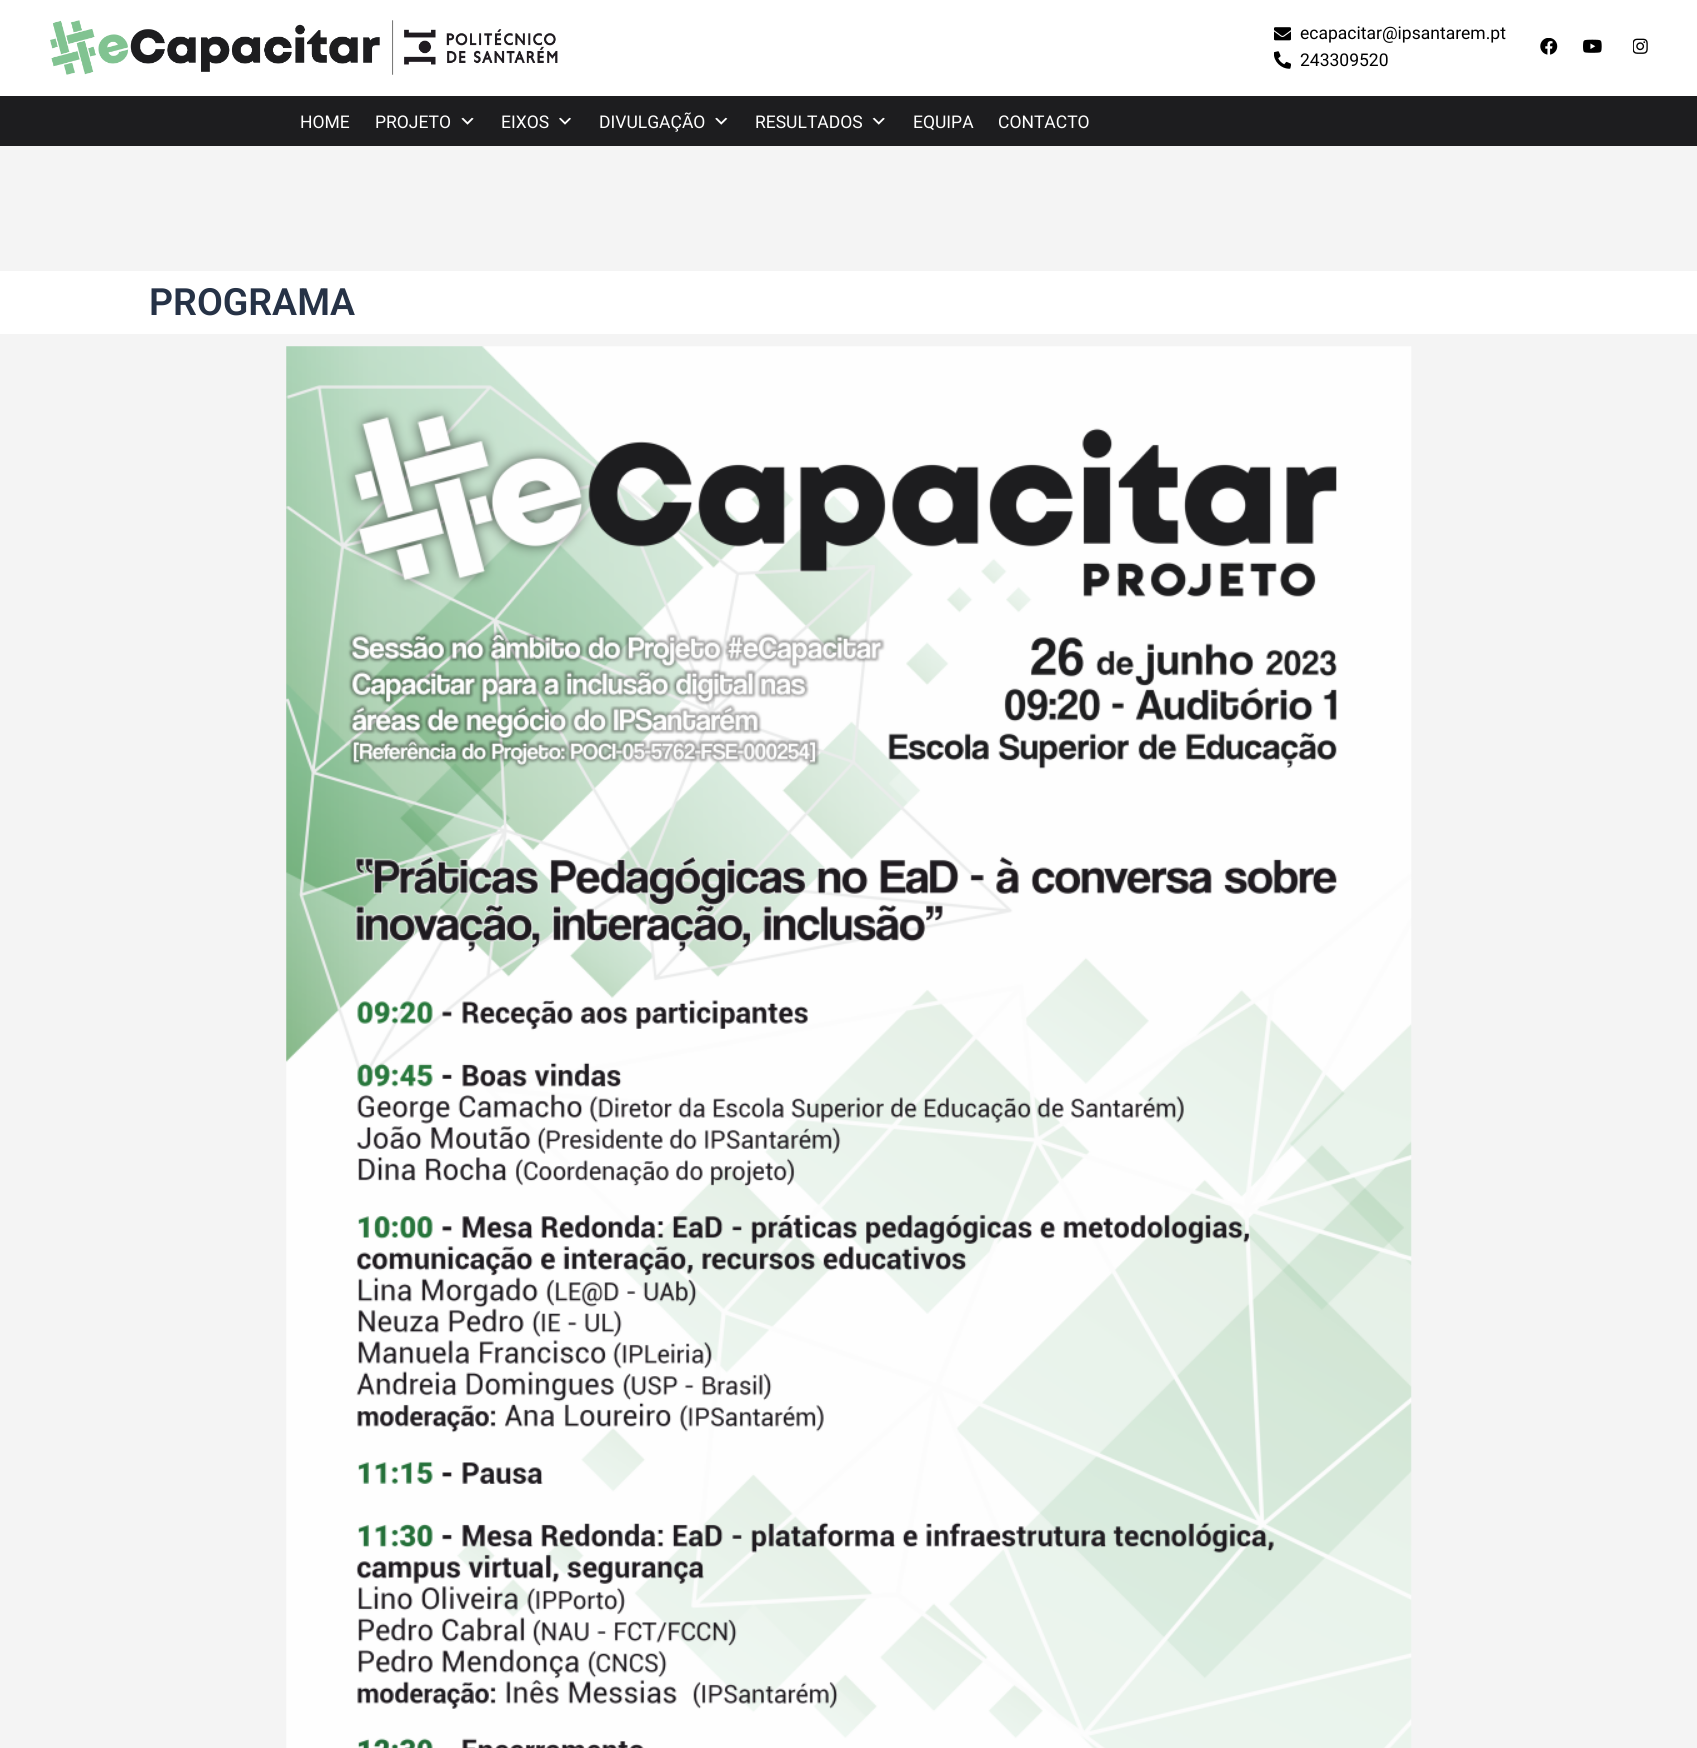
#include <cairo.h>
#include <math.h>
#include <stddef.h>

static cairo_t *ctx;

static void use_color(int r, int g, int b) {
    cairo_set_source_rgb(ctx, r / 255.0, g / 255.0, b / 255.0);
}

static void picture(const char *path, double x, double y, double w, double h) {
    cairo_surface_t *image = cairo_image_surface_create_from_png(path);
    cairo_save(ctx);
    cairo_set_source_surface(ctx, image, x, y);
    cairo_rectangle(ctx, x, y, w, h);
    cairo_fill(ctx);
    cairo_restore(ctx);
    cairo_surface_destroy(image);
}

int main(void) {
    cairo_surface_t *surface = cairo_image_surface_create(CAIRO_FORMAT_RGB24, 1697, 1748);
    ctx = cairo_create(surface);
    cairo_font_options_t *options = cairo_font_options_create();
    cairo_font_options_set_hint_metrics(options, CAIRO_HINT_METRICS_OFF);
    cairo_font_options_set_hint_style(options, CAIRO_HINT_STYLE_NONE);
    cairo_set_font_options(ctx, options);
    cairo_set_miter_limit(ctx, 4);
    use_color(244, 244, 244);
    cairo_paint(ctx);
    use_color(255, 255, 255);
    cairo_rectangle(ctx, 0, 0, 1697, 96);
    cairo_fill(ctx);
    picture("img1.png", 50, 20, 508, 55);
    picture("img2.png", 1274, 27, 17, 14);
    cairo_select_font_face(ctx, "Roboto", CAIRO_FONT_SLANT_NORMAL, CAIRO_FONT_WEIGHT_NORMAL);
    cairo_set_font_size(ctx, 17.5);
    use_color(0, 0, 0);
    cairo_move_to(ctx, 1300, 39);
    cairo_show_text(ctx, "ecapacitar@ipsantarem.pt");
    picture("img3.png", 1274, 51, 17, 18);
    cairo_move_to(ctx, 1300, 66);
    cairo_show_text(ctx, "243309520");
    picture("img4.png", 1540, 38, 18, 17);
    picture("img5.png", 1583, 39, 19, 14);
    picture("img6.png", 1633, 38, 15, 16);
    use_color(29, 29, 31);
    cairo_rectangle(ctx, 0, 96, 1697, 50);
    cairo_fill(ctx);
    use_color(255, 255, 255);
    cairo_move_to(ctx, 300, 128);
    cairo_show_text(ctx, "HOME");
    cairo_move_to(ctx, 375, 128);
    cairo_show_text(ctx, "PROJETO");
    picture("img7.png", 461, 117, 13, 8);
    cairo_move_to(ctx, 501, 128);
    cairo_show_text(ctx, "EIXOS");
    picture("img8.png", 559, 117, 12, 8);
    cairo_move_to(ctx, 599, 128);
    cairo_show_text(ctx, "DIVULGAÇÃO");
    picture("img9.png", 715, 117, 13, 8);
    cairo_move_to(ctx, 755, 128);
    cairo_show_text(ctx, "RESULTADOS");
    picture("img10.png", 872, 117, 13, 8);
    cairo_move_to(ctx, 913, 128);
    cairo_show_text(ctx, "EQUIPA");
    cairo_move_to(ctx, 998, 128);
    cairo_show_text(ctx, "CONTACTO");
    cairo_rectangle(ctx, 0, 271, 1697, 63);
    cairo_fill(ctx);
    cairo_select_font_face(ctx, "Roboto SemiBold", CAIRO_FONT_SLANT_NORMAL, CAIRO_FONT_WEIGHT_NORMAL);
    cairo_set_font_size(ctx, 37.5);
    use_color(38, 50, 70);
    cairo_move_to(ctx, 149, 315);
    cairo_show_text(ctx, "PROGRAMA");
    picture("img11.png", 286, 346, 1126, 1402);
    cairo_surface_write_to_png(surface, "result.png");
    cairo_font_options_destroy(options);
    cairo_destroy(ctx);
    cairo_surface_destroy(surface);
    return 0;
}
